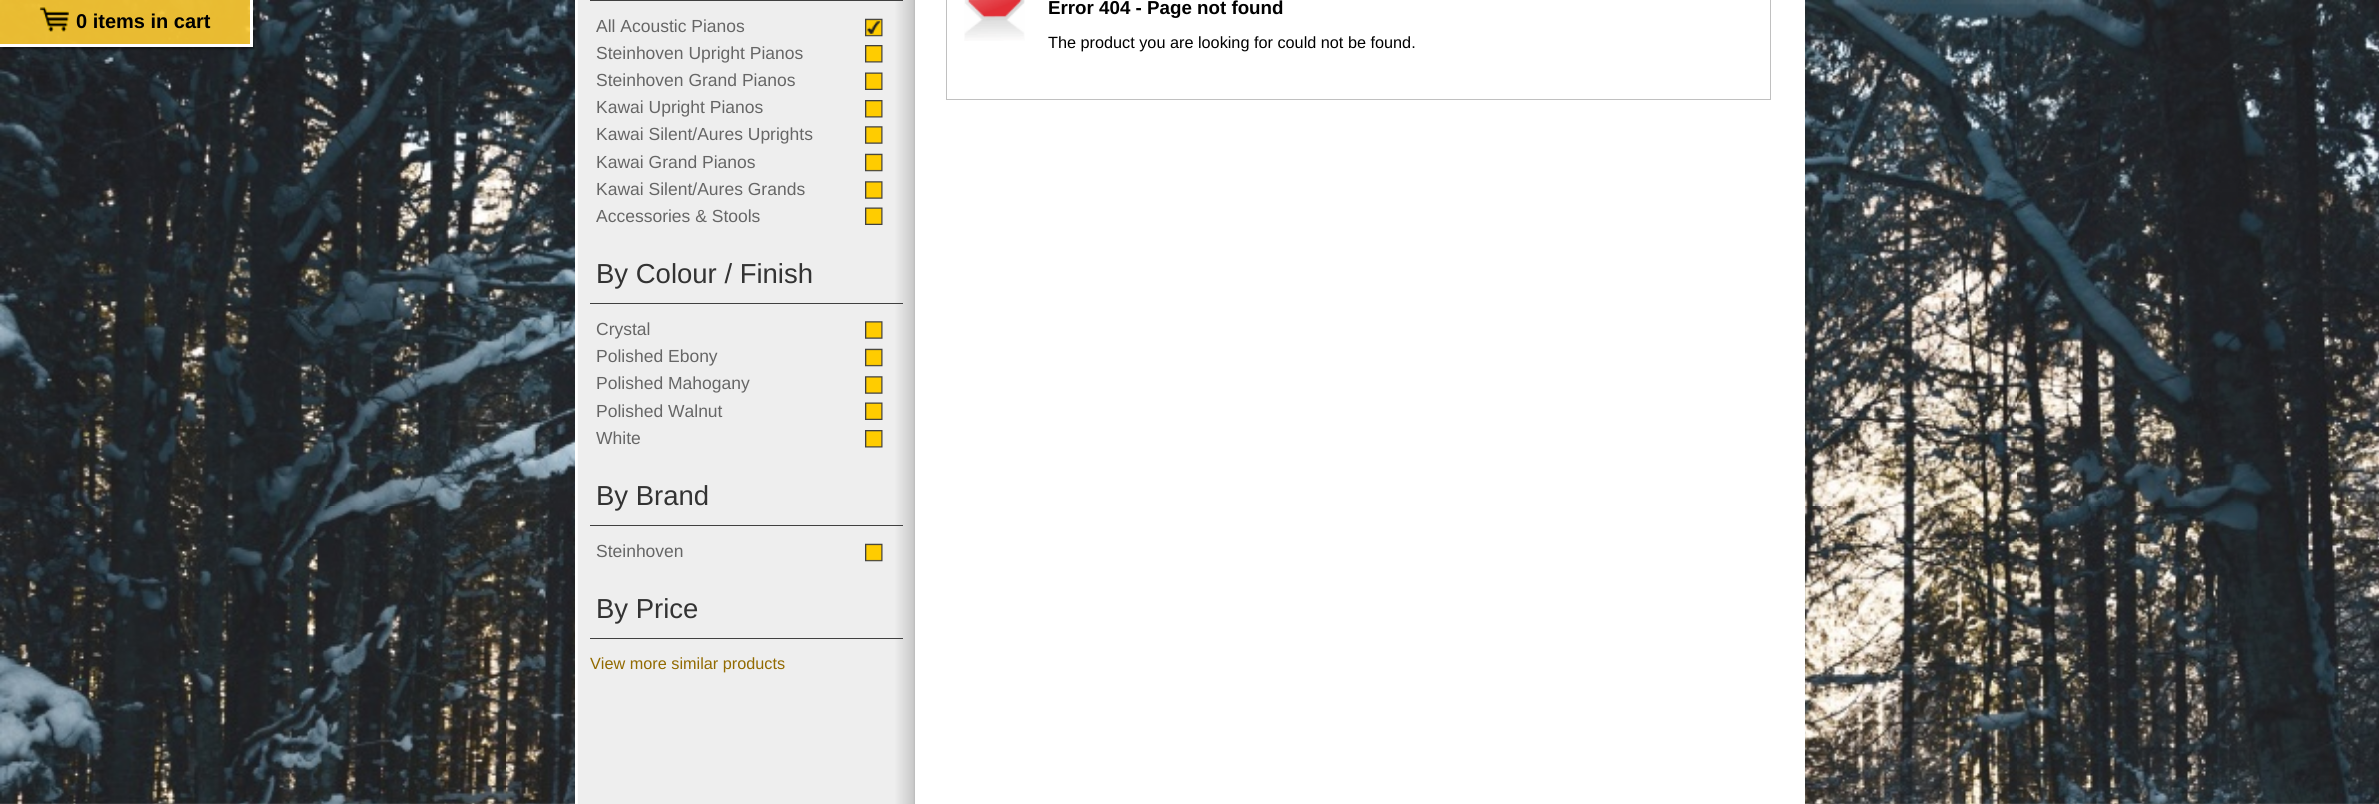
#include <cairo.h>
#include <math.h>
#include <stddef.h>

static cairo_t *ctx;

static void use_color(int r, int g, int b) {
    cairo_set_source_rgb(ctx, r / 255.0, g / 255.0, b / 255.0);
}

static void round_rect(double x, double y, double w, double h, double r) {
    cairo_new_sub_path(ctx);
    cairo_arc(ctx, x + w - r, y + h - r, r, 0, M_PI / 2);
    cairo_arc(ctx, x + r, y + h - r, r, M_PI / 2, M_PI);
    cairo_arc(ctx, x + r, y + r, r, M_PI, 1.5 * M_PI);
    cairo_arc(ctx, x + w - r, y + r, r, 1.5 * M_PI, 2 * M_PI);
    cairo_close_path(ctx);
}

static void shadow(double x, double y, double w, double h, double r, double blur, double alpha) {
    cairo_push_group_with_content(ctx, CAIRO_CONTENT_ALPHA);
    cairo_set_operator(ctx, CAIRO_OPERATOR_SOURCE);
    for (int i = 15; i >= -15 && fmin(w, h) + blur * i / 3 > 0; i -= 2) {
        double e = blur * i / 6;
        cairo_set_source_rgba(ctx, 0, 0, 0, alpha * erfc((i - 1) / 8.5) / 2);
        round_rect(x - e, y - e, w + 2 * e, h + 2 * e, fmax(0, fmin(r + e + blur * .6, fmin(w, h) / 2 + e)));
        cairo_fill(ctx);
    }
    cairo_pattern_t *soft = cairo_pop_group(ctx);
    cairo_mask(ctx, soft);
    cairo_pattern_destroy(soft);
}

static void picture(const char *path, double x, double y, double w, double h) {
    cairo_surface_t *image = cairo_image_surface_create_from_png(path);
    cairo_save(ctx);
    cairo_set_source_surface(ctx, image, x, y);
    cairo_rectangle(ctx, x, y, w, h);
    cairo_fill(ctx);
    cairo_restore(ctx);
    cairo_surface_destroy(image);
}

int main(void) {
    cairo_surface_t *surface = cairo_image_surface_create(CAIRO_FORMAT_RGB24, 2379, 804);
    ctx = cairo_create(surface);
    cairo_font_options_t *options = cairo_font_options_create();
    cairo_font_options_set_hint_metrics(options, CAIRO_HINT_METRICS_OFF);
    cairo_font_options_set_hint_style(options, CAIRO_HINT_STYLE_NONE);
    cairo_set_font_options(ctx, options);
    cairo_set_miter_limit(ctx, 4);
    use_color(255, 255, 255);
    cairo_paint(ctx);
    picture("img1.png", 0, 0, 2379, 804);
    cairo_save(ctx);
    cairo_set_fill_rule(ctx, CAIRO_FILL_RULE_EVEN_ODD);
    cairo_new_path(ctx);
    cairo_move_to(ctx, 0, 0);
    cairo_line_to(ctx, 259, 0);
    cairo_line_to(ctx, 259, 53);
    cairo_line_to(ctx, 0, 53);
    cairo_close_path(ctx);
    cairo_move_to(ctx, 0, 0);
    cairo_line_to(ctx, 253, 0);
    cairo_line_to(ctx, 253, 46);
    cairo_line_to(ctx, 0, 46);
    cairo_close_path(ctx);
    cairo_clip(ctx);
    use_color(0, 0, 0);
    shadow(3, 3, 252, 46, 0, 1, 0.5);
    cairo_restore(ctx);
    cairo_set_source_rgba(ctx, 1, 0.8, 0.2, 0.9);
    cairo_rectangle(ctx, 0, 0, 250, 44);
    cairo_fill(ctx);
    use_color(255, 255, 255);
    cairo_rectangle(ctx, 250, 0, 3, 46);
    cairo_fill(ctx);
    cairo_rectangle(ctx, 0, 44, 253, 3);
    cairo_fill(ctx);
    picture("img2.png", 39, 7, 30, 25);
    cairo_select_font_face(ctx, "Liberation Sans", CAIRO_FONT_SLANT_NORMAL, CAIRO_FONT_WEIGHT_BOLD);
    cairo_set_font_size(ctx, 20);
    use_color(0, 0, 0);
    cairo_move_to(ctx, 76, 28);
    cairo_show_text(ctx, "0 items in cart");
    use_color(255, 255, 255);
    cairo_rectangle(ctx, 575, 0, 1230, 804);
    cairo_fill(ctx);
    picture("img3.png", 577, 0, 338, 804);
    use_color(64, 64, 64);
    cairo_rectangle(ctx, 590, 0, 313, 1);
    cairo_fill(ctx);
    picture("img4.png", 865, 18, 18, 19);
    cairo_select_font_face(ctx, "Liberation Sans", CAIRO_FONT_SLANT_NORMAL, CAIRO_FONT_WEIGHT_NORMAL);
    cairo_set_font_size(ctx, 17.5);
    use_color(102, 102, 102);
    cairo_move_to(ctx, 596, 32);
    cairo_show_text(ctx, "All Acoustic Pianos");
    picture("img5.png", 865, 45, 18, 18);
    cairo_move_to(ctx, 596, 59);
    cairo_show_text(ctx, "Steinhoven Upright Pianos");
    picture("img6.png", 865, 72, 18, 18);
    cairo_move_to(ctx, 596, 86);
    cairo_show_text(ctx, "Steinhoven Grand Pianos");
    picture("img5.png", 865, 100, 18, 18);
    cairo_move_to(ctx, 596, 113);
    cairo_show_text(ctx, "Kawai Upright Pianos");
    picture("img7.png", 865, 126, 18, 18);
    cairo_move_to(ctx, 596, 140);
    cairo_show_text(ctx, "Kawai Silent/Aures Uprights");
    picture("img8.png", 865, 153, 18, 19);
    cairo_move_to(ctx, 596, 168);
    cairo_show_text(ctx, "Kawai Grand Pianos");
    picture("img7.png", 865, 181, 18, 18);
    cairo_move_to(ctx, 596, 195);
    cairo_show_text(ctx, "Kawai Silent/Aures Grands");
    picture("img6.png", 865, 207, 18, 18);
    cairo_move_to(ctx, 596, 222);
    cairo_show_text(ctx, "Accessories & Stools");
    use_color(64, 64, 64);
    cairo_rectangle(ctx, 590, 303, 313, 1);
    cairo_fill(ctx);
    cairo_set_font_size(ctx, 27.5);
    use_color(51, 51, 51);
    cairo_move_to(ctx, 596, 283);
    cairo_show_text(ctx, "By Colour / Finish");
    picture("img7.png", 865, 321, 18, 18);
    cairo_set_font_size(ctx, 17.5);
    use_color(102, 102, 102);
    cairo_move_to(ctx, 596, 335);
    cairo_show_text(ctx, "Crystal");
    picture("img8.png", 865, 348, 18, 19);
    cairo_move_to(ctx, 596, 362);
    cairo_show_text(ctx, "Polished Ebony");
    picture("img7.png", 865, 376, 18, 18);
    cairo_move_to(ctx, 596, 389);
    cairo_show_text(ctx, "Polished Mahogany");
    picture("img6.png", 865, 402, 18, 18);
    cairo_move_to(ctx, 596, 417);
    cairo_show_text(ctx, "Polished Walnut");
    picture("img5.png", 865, 430, 18, 18);
    cairo_move_to(ctx, 596, 444);
    cairo_show_text(ctx, "White");
    use_color(64, 64, 64);
    cairo_rectangle(ctx, 590, 525, 313, 1);
    cairo_fill(ctx);
    cairo_set_font_size(ctx, 27.5);
    use_color(51, 51, 51);
    cairo_move_to(ctx, 596, 505);
    cairo_show_text(ctx, "By Brand");
    picture("img8.png", 865, 543, 18, 19);
    cairo_set_font_size(ctx, 17.5);
    use_color(102, 102, 102);
    cairo_move_to(ctx, 596, 557);
    cairo_show_text(ctx, "Steinhoven");
    use_color(64, 64, 64);
    cairo_rectangle(ctx, 590, 638, 313, 1);
    cairo_fill(ctx);
    cairo_set_font_size(ctx, 27.5);
    use_color(51, 51, 51);
    cairo_move_to(ctx, 596, 618);
    cairo_show_text(ctx, "By Price");
    cairo_set_font_size(ctx, 16.25);
    use_color(146, 106, 0);
    cairo_move_to(ctx, 590, 669);
    cairo_show_text(ctx, "View more similar products");
    picture("img9.png", 964, 0, 61, 41);
    cairo_rectangle(ctx, 946.5, -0.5, 824, 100);
    use_color(192, 192, 192);
    cairo_set_line_width(ctx, 1);
    cairo_stroke(ctx);
    cairo_select_font_face(ctx, "Liberation Sans", CAIRO_FONT_SLANT_NORMAL, CAIRO_FONT_WEIGHT_BOLD);
    cairo_set_font_size(ctx, 18.75);
    use_color(0, 0, 0);
    cairo_move_to(ctx, 1048, 14);
    cairo_show_text(ctx, "Error 404 - Page not found");
    cairo_select_font_face(ctx, "Liberation Sans", CAIRO_FONT_SLANT_NORMAL, CAIRO_FONT_WEIGHT_NORMAL);
    cairo_set_font_size(ctx, 16.25);
    cairo_move_to(ctx, 1048, 48);
    cairo_show_text(ctx, "The product you are looking for could not be found.");
    cairo_surface_write_to_png(surface, "result.png");
    cairo_font_options_destroy(options);
    cairo_destroy(ctx);
    cairo_surface_destroy(surface);
    return 0;
}
